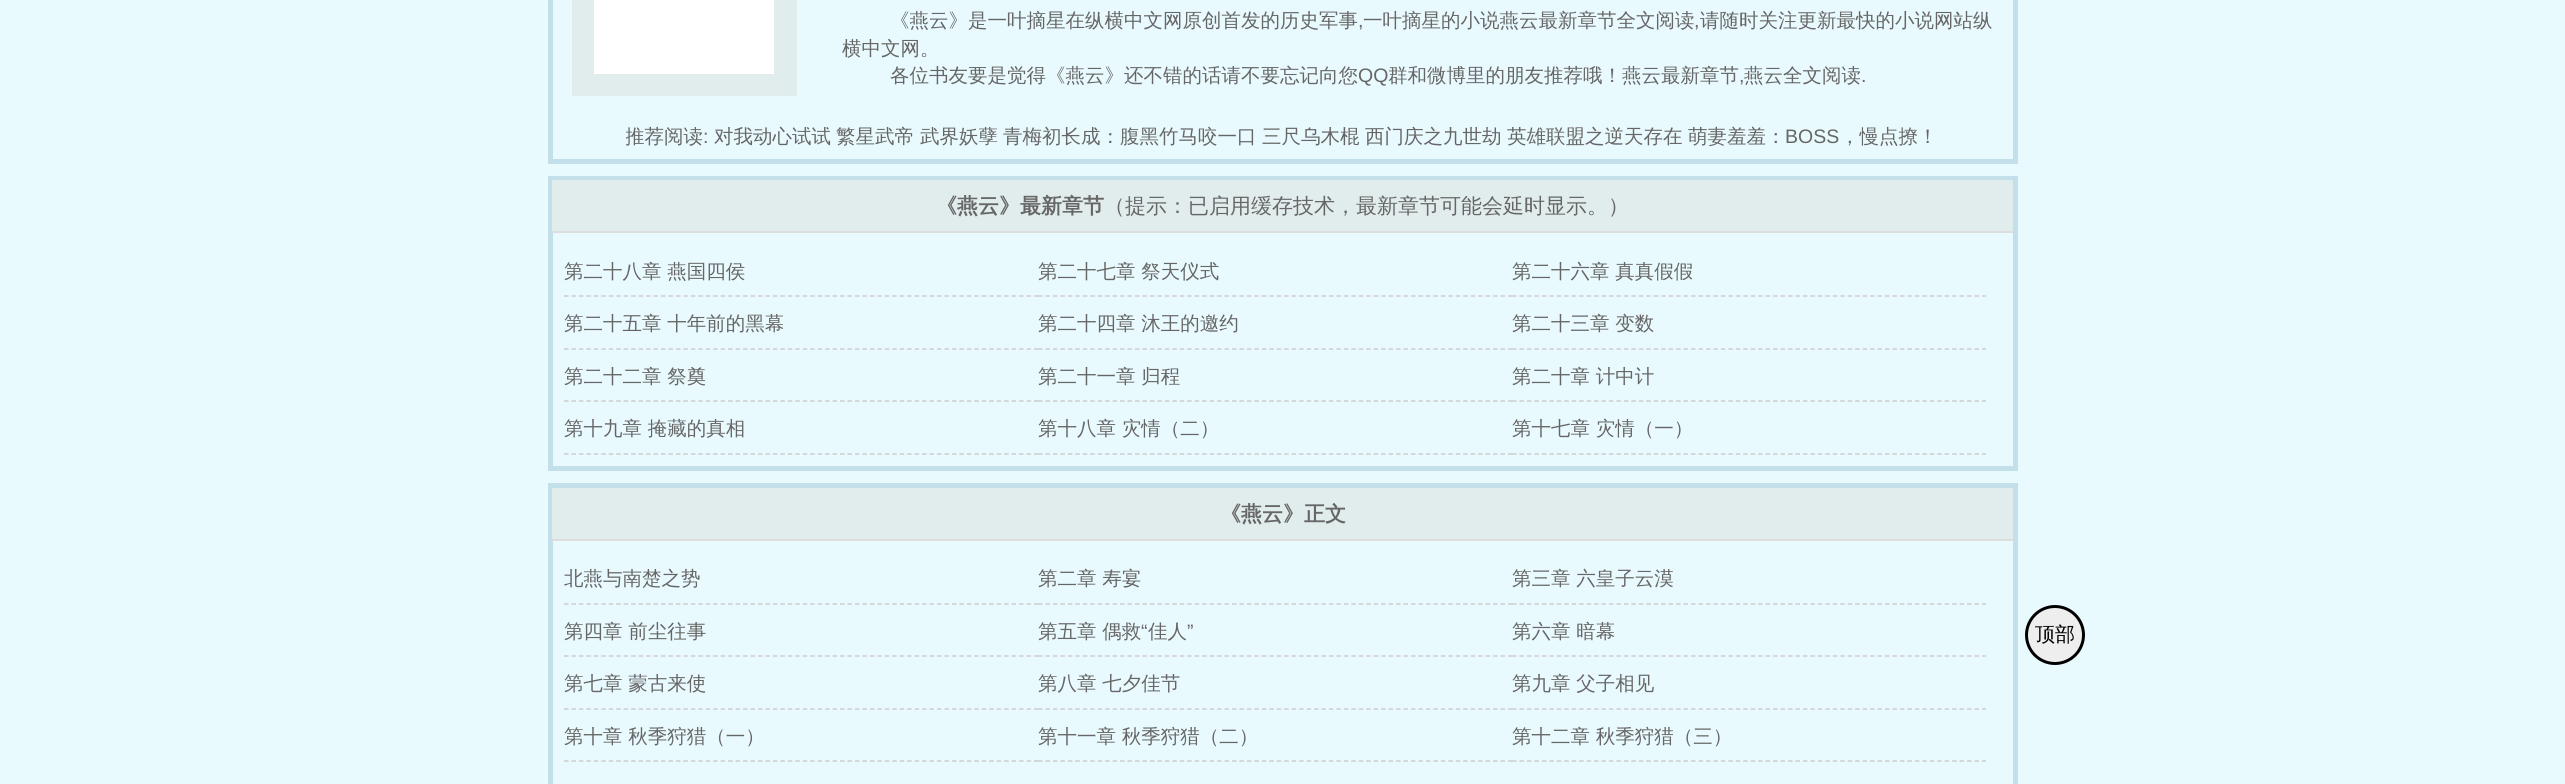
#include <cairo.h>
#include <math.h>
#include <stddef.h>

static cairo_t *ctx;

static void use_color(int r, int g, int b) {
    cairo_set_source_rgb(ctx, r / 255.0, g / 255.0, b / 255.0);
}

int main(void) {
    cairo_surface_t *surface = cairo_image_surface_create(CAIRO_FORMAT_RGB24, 2565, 784);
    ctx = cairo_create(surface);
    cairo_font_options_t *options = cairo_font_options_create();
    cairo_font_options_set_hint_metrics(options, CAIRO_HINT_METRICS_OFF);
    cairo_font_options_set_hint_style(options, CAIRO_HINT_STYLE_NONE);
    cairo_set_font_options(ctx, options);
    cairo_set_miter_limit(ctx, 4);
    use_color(233, 250, 255);
    cairo_paint(ctx);
    cairo_rectangle(ctx, 550.5, -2.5, 1465, 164);
    use_color(195, 223, 234);
    cairo_set_line_width(ctx, 5);
    cairo_stroke(ctx);
    use_color(225, 236, 237);
    cairo_rectangle(ctx, 572, 0, 225, 96);
    cairo_fill(ctx);
    use_color(255, 255, 255);
    cairo_rectangle(ctx, 594, 0, 180, 74);
    cairo_fill(ctx);
    cairo_select_font_face(ctx, "WenQuanYi Zen Hei Medium", CAIRO_FONT_SLANT_NORMAL, CAIRO_FONT_WEIGHT_NORMAL);
    cairo_set_font_size(ctx, 19.5);
    use_color(102, 102, 102);
    cairo_move_to(ctx, 890, 27);
    cairo_show_text(ctx, "《燕云》是一叶摘星在纵横中文网原创首发的历史军事");
    cairo_select_font_face(ctx, "Liberation Sans", CAIRO_FONT_SLANT_NORMAL, CAIRO_FONT_WEIGHT_NORMAL);
    cairo_move_to(ctx, 1358, 27);
    cairo_show_text(ctx, ",");
    cairo_select_font_face(ctx, "WenQuanYi Zen Hei Medium", CAIRO_FONT_SLANT_NORMAL, CAIRO_FONT_WEIGHT_NORMAL);
    cairo_move_to(ctx, 1363, 27);
    cairo_show_text(ctx, "一叶摘星的小说燕云最新章节全文阅读");
    cairo_select_font_face(ctx, "Liberation Sans", CAIRO_FONT_SLANT_NORMAL, CAIRO_FONT_WEIGHT_NORMAL);
    cairo_move_to(ctx, 1694, 27);
    cairo_show_text(ctx, ",");
    cairo_select_font_face(ctx, "WenQuanYi Zen Hei Medium", CAIRO_FONT_SLANT_NORMAL, CAIRO_FONT_WEIGHT_NORMAL);
    cairo_move_to(ctx, 1700, 27);
    cairo_show_text(ctx, "请随时关注更新最快的小说网站纵");
    cairo_move_to(ctx, 842, 55);
    cairo_show_text(ctx, "横中文网。");
    cairo_move_to(ctx, 890, 82);
    cairo_show_text(ctx, "各位书友要是觉得《燕云》还不错的话请不要忘记向您");
    cairo_select_font_face(ctx, "Liberation Sans", CAIRO_FONT_SLANT_NORMAL, CAIRO_FONT_WEIGHT_NORMAL);
    cairo_move_to(ctx, 1358, 82);
    cairo_show_text(ctx, "QQ");
    cairo_select_font_face(ctx, "WenQuanYi Zen Hei Medium", CAIRO_FONT_SLANT_NORMAL, CAIRO_FONT_WEIGHT_NORMAL);
    cairo_move_to(ctx, 1388, 82);
    cairo_show_text(ctx, "群和微博里的朋友推荐哦！燕云最新章节");
    cairo_select_font_face(ctx, "Liberation Sans", CAIRO_FONT_SLANT_NORMAL, CAIRO_FONT_WEIGHT_NORMAL);
    cairo_move_to(ctx, 1739, 82);
    cairo_show_text(ctx, ",");
    cairo_select_font_face(ctx, "WenQuanYi Zen Hei Medium", CAIRO_FONT_SLANT_NORMAL, CAIRO_FONT_WEIGHT_NORMAL);
    cairo_move_to(ctx, 1744, 82);
    cairo_show_text(ctx, "燕云全文阅读");
    cairo_select_font_face(ctx, "Liberation Sans", CAIRO_FONT_SLANT_NORMAL, CAIRO_FONT_WEIGHT_NORMAL);
    cairo_move_to(ctx, 1861, 82);
    cairo_show_text(ctx, ".");
    cairo_save(ctx);
    cairo_rectangle(ctx, 626, 114, 1314, 45);
    cairo_clip(ctx);
    cairo_select_font_face(ctx, "WenQuanYi Zen Hei Medium", CAIRO_FONT_SLANT_NORMAL, CAIRO_FONT_WEIGHT_NORMAL);
    cairo_move_to(ctx, 625, 143);
    cairo_show_text(ctx, "推荐阅读");
    cairo_restore(ctx);
    cairo_move_to(ctx, 703, 143);
    cairo_show_text(ctx, ":");
    cairo_select_font_face(ctx, "WenQuanYi Zen Hei Medium", CAIRO_FONT_SLANT_NORMAL, CAIRO_FONT_WEIGHT_NORMAL);
    cairo_move_to(ctx, 714, 143);
    cairo_show_text(ctx, "对我动心试试");
    cairo_move_to(ctx, 836, 143);
    cairo_show_text(ctx, "繁星武帝");
    cairo_move_to(ctx, 920, 143);
    cairo_show_text(ctx, "武界妖孽");
    cairo_move_to(ctx, 1003, 143);
    cairo_show_text(ctx, "青梅初长成：腹黑竹马咬一口");
    cairo_move_to(ctx, 1262, 143);
    cairo_show_text(ctx, "三尺乌木棍");
    cairo_move_to(ctx, 1365, 143);
    cairo_show_text(ctx, "西门庆之九世劫");
    cairo_move_to(ctx, 1507, 143);
    cairo_show_text(ctx, "英雄联盟之逆天存在");
    cairo_move_to(ctx, 1688, 143);
    cairo_show_text(ctx, "萌妻羞羞：");
    cairo_select_font_face(ctx, "Liberation Sans", CAIRO_FONT_SLANT_NORMAL, CAIRO_FONT_WEIGHT_NORMAL);
    cairo_move_to(ctx, 1785, 143);
    cairo_show_text(ctx, "BOSS");
    cairo_select_font_face(ctx, "WenQuanYi Zen Hei Medium", CAIRO_FONT_SLANT_NORMAL, CAIRO_FONT_WEIGHT_NORMAL);
    cairo_move_to(ctx, 1840, 143);
    cairo_show_text(ctx, "，慢点撩！");
    cairo_rectangle(ctx, 550.5, 178.5, 1465, 290);
    use_color(195, 223, 234);
    cairo_stroke(ctx);
    use_color(225, 236, 237);
    cairo_rectangle(ctx, 552, 180, 1461, 51);
    cairo_fill(ctx);
    use_color(221, 221, 221);
    cairo_rectangle(ctx, 552, 231, 1461, 2);
    cairo_fill(ctx);
    cairo_select_font_face(ctx, "WenQuanYi Zen Hei", CAIRO_FONT_SLANT_NORMAL, CAIRO_FONT_WEIGHT_BOLD);
    cairo_set_font_size(ctx, 21);
    use_color(102, 102, 102);
    cairo_move_to(ctx, 936, 213);
    cairo_show_text(ctx, "《燕云》最新章节");
    cairo_select_font_face(ctx, "WenQuanYi Zen Hei Medium", CAIRO_FONT_SLANT_NORMAL, CAIRO_FONT_WEIGHT_NORMAL);
    cairo_move_to(ctx, 1104, 213);
    cairo_show_text(ctx, "（提示：已启用缓存技术，最新章节可能会延时显示。）");
    cairo_new_path(ctx);
    cairo_move_to(ctx, 564, 296);
    cairo_line_to(ctx, 1038, 296);
    use_color(204, 204, 204);
    cairo_set_line_width(ctx, 1.5);
    cairo_set_dash(ctx, (double[]){4.5, 2.96}, 2, 0);
    cairo_stroke(ctx);
    cairo_set_font_size(ctx, 19.5);
    use_color(102, 102, 102);
    cairo_move_to(ctx, 564, 278);
    cairo_show_text(ctx, "第二十八章 燕国四侯");
    cairo_new_path(ctx);
    cairo_move_to(ctx, 1038, 296);
    cairo_line_to(ctx, 1512, 296);
    use_color(204, 204, 204);
    cairo_stroke(ctx);
    use_color(102, 102, 102);
    cairo_move_to(ctx, 1038, 278);
    cairo_show_text(ctx, "第二十七章 祭天仪式");
    cairo_new_path(ctx);
    cairo_move_to(ctx, 1512, 296);
    cairo_line_to(ctx, 1986, 296);
    use_color(204, 204, 204);
    cairo_stroke(ctx);
    use_color(102, 102, 102);
    cairo_move_to(ctx, 1512, 278);
    cairo_show_text(ctx, "第二十六章 真真假假");
    cairo_new_path(ctx);
    cairo_move_to(ctx, 564, 349);
    cairo_line_to(ctx, 1038, 349);
    use_color(204, 204, 204);
    cairo_stroke(ctx);
    use_color(102, 102, 102);
    cairo_move_to(ctx, 564, 330);
    cairo_show_text(ctx, "第二十五章 十年前的黑幕");
    cairo_new_path(ctx);
    cairo_move_to(ctx, 1038, 349);
    cairo_line_to(ctx, 1512, 349);
    use_color(204, 204, 204);
    cairo_stroke(ctx);
    use_color(102, 102, 102);
    cairo_move_to(ctx, 1038, 330);
    cairo_show_text(ctx, "第二十四章 沐王的邀约");
    cairo_new_path(ctx);
    cairo_move_to(ctx, 1512, 349);
    cairo_line_to(ctx, 1986, 349);
    use_color(204, 204, 204);
    cairo_stroke(ctx);
    use_color(102, 102, 102);
    cairo_move_to(ctx, 1512, 330);
    cairo_show_text(ctx, "第二十三章 变数");
    cairo_new_path(ctx);
    cairo_move_to(ctx, 564, 401);
    cairo_line_to(ctx, 1038, 401);
    use_color(204, 204, 204);
    cairo_stroke(ctx);
    use_color(102, 102, 102);
    cairo_move_to(ctx, 564, 383);
    cairo_show_text(ctx, "第二十二章 祭奠");
    cairo_new_path(ctx);
    cairo_move_to(ctx, 1038, 401);
    cairo_line_to(ctx, 1512, 401);
    use_color(204, 204, 204);
    cairo_stroke(ctx);
    use_color(102, 102, 102);
    cairo_move_to(ctx, 1038, 383);
    cairo_show_text(ctx, "第二十一章 归程");
    cairo_new_path(ctx);
    cairo_move_to(ctx, 1512, 401);
    cairo_line_to(ctx, 1986, 401);
    use_color(204, 204, 204);
    cairo_stroke(ctx);
    use_color(102, 102, 102);
    cairo_move_to(ctx, 1512, 383);
    cairo_show_text(ctx, "第二十章 计中计");
    cairo_new_path(ctx);
    cairo_move_to(ctx, 564, 454);
    cairo_line_to(ctx, 1038, 454);
    use_color(204, 204, 204);
    cairo_stroke(ctx);
    use_color(102, 102, 102);
    cairo_move_to(ctx, 564, 435);
    cairo_show_text(ctx, "第十九章 掩藏的真相");
    cairo_new_path(ctx);
    cairo_move_to(ctx, 1038, 454);
    cairo_line_to(ctx, 1512, 454);
    use_color(204, 204, 204);
    cairo_stroke(ctx);
    use_color(102, 102, 102);
    cairo_move_to(ctx, 1038, 435);
    cairo_show_text(ctx, "第十八章 灾情（二）");
    cairo_new_path(ctx);
    cairo_move_to(ctx, 1512, 454);
    cairo_line_to(ctx, 1986, 454);
    use_color(204, 204, 204);
    cairo_stroke(ctx);
    use_color(102, 102, 102);
    cairo_move_to(ctx, 1512, 435);
    cairo_show_text(ctx, "第十七章 灾情（一）");
    cairo_rectangle(ctx, 550.5, 485.5, 1465, 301);
    use_color(195, 223, 234);
    cairo_set_line_width(ctx, 5);
    cairo_set_dash(ctx, NULL, 0, 0);
    cairo_stroke(ctx);
    use_color(225, 236, 237);
    cairo_rectangle(ctx, 552, 488, 1461, 51);
    cairo_fill(ctx);
    use_color(221, 221, 221);
    cairo_rectangle(ctx, 552, 539, 1461, 2);
    cairo_fill(ctx);
    cairo_select_font_face(ctx, "WenQuanYi Zen Hei", CAIRO_FONT_SLANT_NORMAL, CAIRO_FONT_WEIGHT_BOLD);
    cairo_set_font_size(ctx, 21);
    use_color(102, 102, 102);
    cairo_move_to(ctx, 1220, 521);
    cairo_show_text(ctx, "《燕云》正文");
    cairo_new_path(ctx);
    cairo_move_to(ctx, 564, 604);
    cairo_line_to(ctx, 1038, 604);
    use_color(204, 204, 204);
    cairo_set_line_width(ctx, 1.5);
    cairo_set_dash(ctx, (double[]){4.5, 2.96}, 2, 0);
    cairo_stroke(ctx);
    cairo_select_font_face(ctx, "WenQuanYi Zen Hei Medium", CAIRO_FONT_SLANT_NORMAL, CAIRO_FONT_WEIGHT_NORMAL);
    cairo_set_font_size(ctx, 19.5);
    use_color(102, 102, 102);
    cairo_move_to(ctx, 564, 585);
    cairo_show_text(ctx, "北燕与南楚之势");
    cairo_new_path(ctx);
    cairo_move_to(ctx, 1038, 604);
    cairo_line_to(ctx, 1512, 604);
    use_color(204, 204, 204);
    cairo_stroke(ctx);
    use_color(102, 102, 102);
    cairo_move_to(ctx, 1038, 585);
    cairo_show_text(ctx, "第二章 寿宴");
    cairo_new_path(ctx);
    cairo_move_to(ctx, 1512, 604);
    cairo_line_to(ctx, 1986, 604);
    use_color(204, 204, 204);
    cairo_stroke(ctx);
    use_color(102, 102, 102);
    cairo_move_to(ctx, 1512, 585);
    cairo_show_text(ctx, "第三章 六皇子云漠");
    cairo_new_path(ctx);
    cairo_move_to(ctx, 564, 656);
    cairo_line_to(ctx, 1038, 656);
    use_color(204, 204, 204);
    cairo_stroke(ctx);
    use_color(102, 102, 102);
    cairo_move_to(ctx, 564, 638);
    cairo_show_text(ctx, "第四章 前尘往事");
    cairo_new_path(ctx);
    cairo_move_to(ctx, 1038, 656);
    cairo_line_to(ctx, 1512, 656);
    use_color(204, 204, 204);
    cairo_stroke(ctx);
    use_color(102, 102, 102);
    cairo_move_to(ctx, 1038, 638);
    cairo_show_text(ctx, "第五章 偶救");
    cairo_select_font_face(ctx, "Liberation Sans", CAIRO_FONT_SLANT_NORMAL, CAIRO_FONT_WEIGHT_NORMAL);
    cairo_move_to(ctx, 1141, 638);
    cairo_show_text(ctx, "“");
    cairo_select_font_face(ctx, "WenQuanYi Zen Hei Medium", CAIRO_FONT_SLANT_NORMAL, CAIRO_FONT_WEIGHT_NORMAL);
    cairo_move_to(ctx, 1148, 638);
    cairo_show_text(ctx, "佳人");
    cairo_select_font_face(ctx, "Liberation Sans", CAIRO_FONT_SLANT_NORMAL, CAIRO_FONT_WEIGHT_NORMAL);
    cairo_move_to(ctx, 1187, 638);
    cairo_show_text(ctx, "”");
    cairo_new_path(ctx);
    cairo_move_to(ctx, 1512, 656);
    cairo_line_to(ctx, 1986, 656);
    use_color(204, 204, 204);
    cairo_stroke(ctx);
    cairo_select_font_face(ctx, "WenQuanYi Zen Hei Medium", CAIRO_FONT_SLANT_NORMAL, CAIRO_FONT_WEIGHT_NORMAL);
    use_color(102, 102, 102);
    cairo_move_to(ctx, 1512, 638);
    cairo_show_text(ctx, "第六章 暗幕");
    cairo_new_path(ctx);
    cairo_move_to(ctx, 564, 709);
    cairo_line_to(ctx, 1038, 709);
    use_color(204, 204, 204);
    cairo_stroke(ctx);
    use_color(102, 102, 102);
    cairo_move_to(ctx, 564, 690);
    cairo_show_text(ctx, "第七章 蒙古来使");
    cairo_new_path(ctx);
    cairo_move_to(ctx, 1038, 709);
    cairo_line_to(ctx, 1512, 709);
    use_color(204, 204, 204);
    cairo_stroke(ctx);
    use_color(102, 102, 102);
    cairo_move_to(ctx, 1038, 690);
    cairo_show_text(ctx, "第八章 七夕佳节");
    cairo_new_path(ctx);
    cairo_move_to(ctx, 1512, 709);
    cairo_line_to(ctx, 1986, 709);
    use_color(204, 204, 204);
    cairo_stroke(ctx);
    use_color(102, 102, 102);
    cairo_move_to(ctx, 1512, 690);
    cairo_show_text(ctx, "第九章 父子相见");
    cairo_new_path(ctx);
    cairo_move_to(ctx, 564, 761);
    cairo_line_to(ctx, 1038, 761);
    use_color(204, 204, 204);
    cairo_stroke(ctx);
    use_color(102, 102, 102);
    cairo_move_to(ctx, 564, 743);
    cairo_show_text(ctx, "第十章 秋季狩猎（一）");
    cairo_new_path(ctx);
    cairo_move_to(ctx, 1038, 761);
    cairo_line_to(ctx, 1512, 761);
    use_color(204, 204, 204);
    cairo_stroke(ctx);
    use_color(102, 102, 102);
    cairo_move_to(ctx, 1038, 743);
    cairo_show_text(ctx, "第十一章 秋季狩猎（二）");
    cairo_new_path(ctx);
    cairo_move_to(ctx, 1512, 761);
    cairo_line_to(ctx, 1986, 761);
    use_color(204, 204, 204);
    cairo_stroke(ctx);
    use_color(102, 102, 102);
    cairo_move_to(ctx, 1512, 743);
    cairo_show_text(ctx, "第十二章 秋季狩猎（三）");
    use_color(238, 238, 238);
    cairo_new_path(ctx);
    cairo_arc(ctx, 2055, 635, 28.5, 0, 2 * M_PI);
    cairo_fill_preserve(ctx);
    use_color(0, 0, 0);
    cairo_set_line_width(ctx, 3);
    cairo_set_dash(ctx, NULL, 0, 0);
    cairo_stroke(ctx);
    cairo_set_font_size(ctx, 20);
    cairo_move_to(ctx, 2035, 641);
    cairo_show_text(ctx, "顶部");
    cairo_surface_write_to_png(surface, "result.png");
    cairo_font_options_destroy(options);
    cairo_destroy(ctx);
    cairo_surface_destroy(surface);
    return 0;
}
